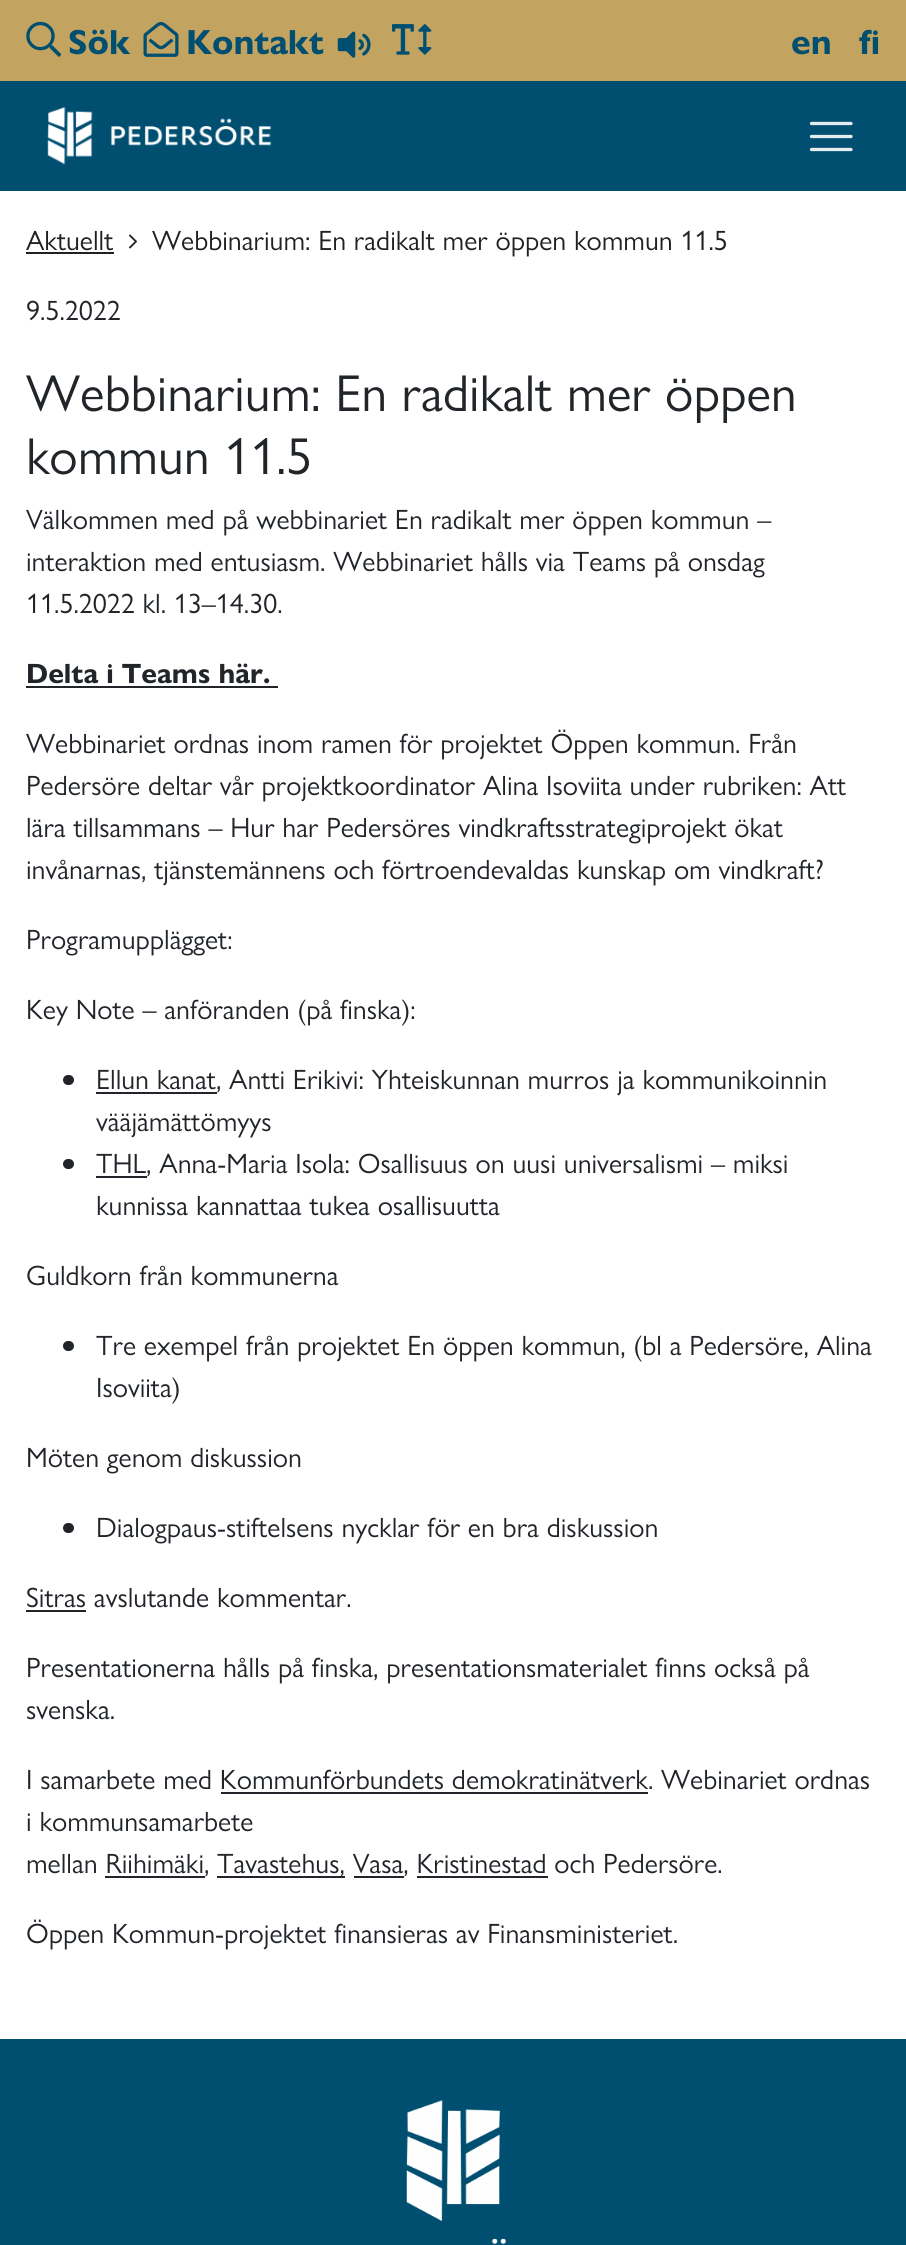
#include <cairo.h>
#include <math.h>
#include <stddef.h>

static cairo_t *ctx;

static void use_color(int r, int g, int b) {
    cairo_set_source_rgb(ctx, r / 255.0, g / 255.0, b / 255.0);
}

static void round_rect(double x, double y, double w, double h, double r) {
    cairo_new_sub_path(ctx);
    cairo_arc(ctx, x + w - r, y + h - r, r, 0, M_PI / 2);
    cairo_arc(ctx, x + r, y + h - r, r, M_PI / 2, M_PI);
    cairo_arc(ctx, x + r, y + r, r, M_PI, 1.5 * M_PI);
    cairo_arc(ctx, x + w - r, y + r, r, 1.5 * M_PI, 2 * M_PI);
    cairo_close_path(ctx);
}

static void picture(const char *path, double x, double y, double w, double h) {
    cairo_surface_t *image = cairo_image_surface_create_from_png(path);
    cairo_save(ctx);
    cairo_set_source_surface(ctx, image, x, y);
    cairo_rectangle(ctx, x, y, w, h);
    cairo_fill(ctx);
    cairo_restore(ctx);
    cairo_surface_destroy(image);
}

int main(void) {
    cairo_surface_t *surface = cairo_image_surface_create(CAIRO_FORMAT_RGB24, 906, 2245);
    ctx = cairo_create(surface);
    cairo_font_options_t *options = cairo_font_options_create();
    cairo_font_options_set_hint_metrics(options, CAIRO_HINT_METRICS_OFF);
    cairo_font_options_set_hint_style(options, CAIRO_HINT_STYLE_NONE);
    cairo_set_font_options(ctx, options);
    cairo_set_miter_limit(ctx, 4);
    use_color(255, 255, 255);
    cairo_paint(ctx);
    use_color(194, 163, 95);
    cairo_rectangle(ctx, 0, 0, 906, 81);
    cairo_fill(ctx);
    picture("img1.png", 26, 21, 36, 36);
    cairo_select_font_face(ctx, "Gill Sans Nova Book", CAIRO_FONT_SLANT_NORMAL, CAIRO_FONT_WEIGHT_BOLD);
    cairo_set_font_size(ctx, 35);
    use_color(0, 79, 113);
    cairo_move_to(ctx, 68, 54);
    cairo_show_text(ctx, "Sök");
    picture("img2.png", 143, 21, 36, 36);
    cairo_move_to(ctx, 186, 54);
    cairo_show_text(ctx, "Kontakt");
    picture("img3.png", 337, 31, 34, 27);
    picture("img4.png", 392, 24, 40, 31);
    cairo_move_to(ctx, 791, 54);
    cairo_show_text(ctx, "en");
    cairo_move_to(ctx, 859, 54);
    cairo_show_text(ctx, "fi");
    cairo_rectangle(ctx, 0, 81, 906, 110);
    cairo_fill(ctx);
    picture("img5.png", 47, 107, 225, 58);
    cairo_new_path(ctx);
    cairo_move_to(ctx, 811.5, 123.5);
    cairo_line_to(ctx, 851, 123.5);
    cairo_move_to(ctx, 811.5, 136.5);
    cairo_line_to(ctx, 851, 136.5);
    cairo_move_to(ctx, 811.5, 149.5);
    cairo_line_to(ctx, 851, 149.5);
    use_color(230, 237, 241);
    cairo_set_line_width(ctx, 3.3);
    cairo_set_line_cap(ctx, CAIRO_LINE_CAP_ROUND);
    cairo_stroke(ctx);
    cairo_select_font_face(ctx, "Gill Sans Nova Book", CAIRO_FONT_SLANT_NORMAL, CAIRO_FONT_WEIGHT_NORMAL);
    cairo_set_font_size(ctx, 28);
    use_color(33, 33, 33);
    cairo_move_to(ctx, 26, 250);
    cairo_show_text(ctx, "Aktuellt");
    cairo_rectangle(ctx, 26, 252, 88, 2);
    cairo_fill(ctx);
    picture("img6.png", 128, 234, 9, 15);
    cairo_move_to(ctx, 152, 250);
    cairo_show_text(ctx, "Webbinarium: En radikalt mer öppen kommun 11.5");
    use_color(33, 37, 41);
    cairo_move_to(ctx, 26, 320);
    cairo_show_text(ctx, "9.5.2022");
    cairo_set_font_size(ctx, 52.1);
    cairo_move_to(ctx, 26, 411);
    cairo_show_text(ctx, "Webbinarium: En radikalt mer öppen");
    cairo_move_to(ctx, 26, 474);
    cairo_show_text(ctx, "kommun 11.5");
    cairo_set_font_size(ctx, 28);
    cairo_move_to(ctx, 26, 529);
    cairo_show_text(ctx, "Välkommen med på webbinariet En radikalt mer öppen kommun –");
    cairo_move_to(ctx, 26, 571);
    cairo_show_text(ctx, "interaktion med entusiasm. Webbinariet hålls via Teams på onsdag");
    cairo_move_to(ctx, 26, 613);
    cairo_show_text(ctx, "11.5.2022 kl. 13–14.30.");
    cairo_select_font_face(ctx, "Gill Sans Nova Book", CAIRO_FONT_SLANT_NORMAL, CAIRO_FONT_WEIGHT_BOLD);
    cairo_move_to(ctx, 26, 683);
    cairo_show_text(ctx, "Delta i Teams här.");
    cairo_rectangle(ctx, 26, 686, 252, 2);
    cairo_fill(ctx);
    cairo_select_font_face(ctx, "Gill Sans Nova Book", CAIRO_FONT_SLANT_NORMAL, CAIRO_FONT_WEIGHT_NORMAL);
    cairo_move_to(ctx, 26, 753);
    cairo_show_text(ctx, "Webbinariet ordnas inom ramen för projektet Öppen kommun. Från");
    cairo_move_to(ctx, 26, 795);
    cairo_show_text(ctx, "Pedersöre deltar vår projektkoordinator Alina Isoviita under rubriken: Att");
    cairo_move_to(ctx, 26, 837);
    cairo_show_text(ctx, "lära tillsammans – Hur har Pedersöres vindkraftsstrategiprojekt ökat");
    cairo_move_to(ctx, 26, 879);
    cairo_show_text(ctx, "invånarnas, tjänstemännens och förtroendevaldas kunskap om vindkraft?");
    cairo_move_to(ctx, 26, 949);
    cairo_show_text(ctx, "Programupplägget:");
    cairo_move_to(ctx, 26, 1019);
    cairo_show_text(ctx, "Key Note – anföranden (på finska):");
    round_rect(63, 1075, 11, 10, 5);
    cairo_fill(ctx);
    cairo_rectangle(ctx, 96, 1092, 121, 2);
    cairo_fill(ctx);
    cairo_move_to(ctx, 96, 1089);
    cairo_show_text(ctx, "Ellun kanat, Antti Erikivi: Yhteiskunnan murros ja kommunikoinnin");
    cairo_move_to(ctx, 96, 1131);
    cairo_show_text(ctx, "vääjämättömyys");
    round_rect(63, 1159, 11, 10, 5);
    cairo_fill(ctx);
    cairo_rectangle(ctx, 96, 1176, 51, 2);
    cairo_fill(ctx);
    cairo_move_to(ctx, 96, 1173);
    cairo_show_text(ctx, "THL, Anna-Maria Isola: Osallisuus on uusi universalismi – miksi");
    cairo_move_to(ctx, 96, 1215);
    cairo_show_text(ctx, "kunnissa kannattaa tukea osallisuutta");
    cairo_move_to(ctx, 26, 1285);
    cairo_show_text(ctx, "Guldkorn från kommunerna");
    round_rect(63, 1341, 11, 10, 5);
    cairo_fill(ctx);
    cairo_move_to(ctx, 96, 1355);
    cairo_show_text(ctx, "Tre exempel från projektet En öppen kommun, (bl a Pedersöre, Alina");
    cairo_move_to(ctx, 96, 1397);
    cairo_show_text(ctx, "Isoviita)");
    cairo_move_to(ctx, 26, 1467);
    cairo_show_text(ctx, "Möten genom diskussion");
    round_rect(63, 1523, 11, 10, 5);
    cairo_fill(ctx);
    cairo_move_to(ctx, 96, 1537);
    cairo_show_text(ctx, "Dialogpaus-stiftelsens nycklar för en bra diskussion");
    cairo_move_to(ctx, 26, 1607);
    cairo_show_text(ctx, "Sitras avslutande kommentar.");
    cairo_rectangle(ctx, 26, 1610, 60, 2);
    cairo_fill(ctx);
    cairo_move_to(ctx, 26, 1677);
    cairo_show_text(ctx, "Presentationerna hålls på finska, presentationsmaterialet finns också på");
    cairo_move_to(ctx, 26, 1719);
    cairo_show_text(ctx, "svenska.");
    cairo_move_to(ctx, 26, 1789);
    cairo_show_text(ctx, "I samarbete med Kommunförbundets demokratinätverk. Webinariet ordnas");
    cairo_rectangle(ctx, 221, 1792, 427, 2);
    cairo_fill(ctx);
    cairo_move_to(ctx, 26, 1831);
    cairo_show_text(ctx, "i kommunsamarbete");
    cairo_move_to(ctx, 26, 1873);
    cairo_show_text(ctx, "mellan Riihimäki,");
    cairo_rectangle(ctx, 217, 1876, 128, 2);
    cairo_fill(ctx);
    cairo_move_to(ctx, 217, 1873);
    cairo_show_text(ctx, "Tavastehus, Vasa, Kristinestad och Pedersöre.");
    cairo_rectangle(ctx, 105, 1876, 100, 2);
    cairo_fill(ctx);
    cairo_rectangle(ctx, 354, 1876, 50, 2);
    cairo_fill(ctx);
    cairo_rectangle(ctx, 417, 1876, 131, 2);
    cairo_fill(ctx);
    cairo_move_to(ctx, 26, 1943);
    cairo_show_text(ctx, "Öppen Kommun-projektet finansieras av Finansministeriet.");
    use_color(0, 79, 113);
    cairo_rectangle(ctx, 0, 2039, 906, 206);
    cairo_fill(ctx);
    picture("img7.png", 406, 2100, 100, 145);
    cairo_surface_write_to_png(surface, "result.png");
    cairo_font_options_destroy(options);
    cairo_destroy(ctx);
    cairo_surface_destroy(surface);
    return 0;
}
